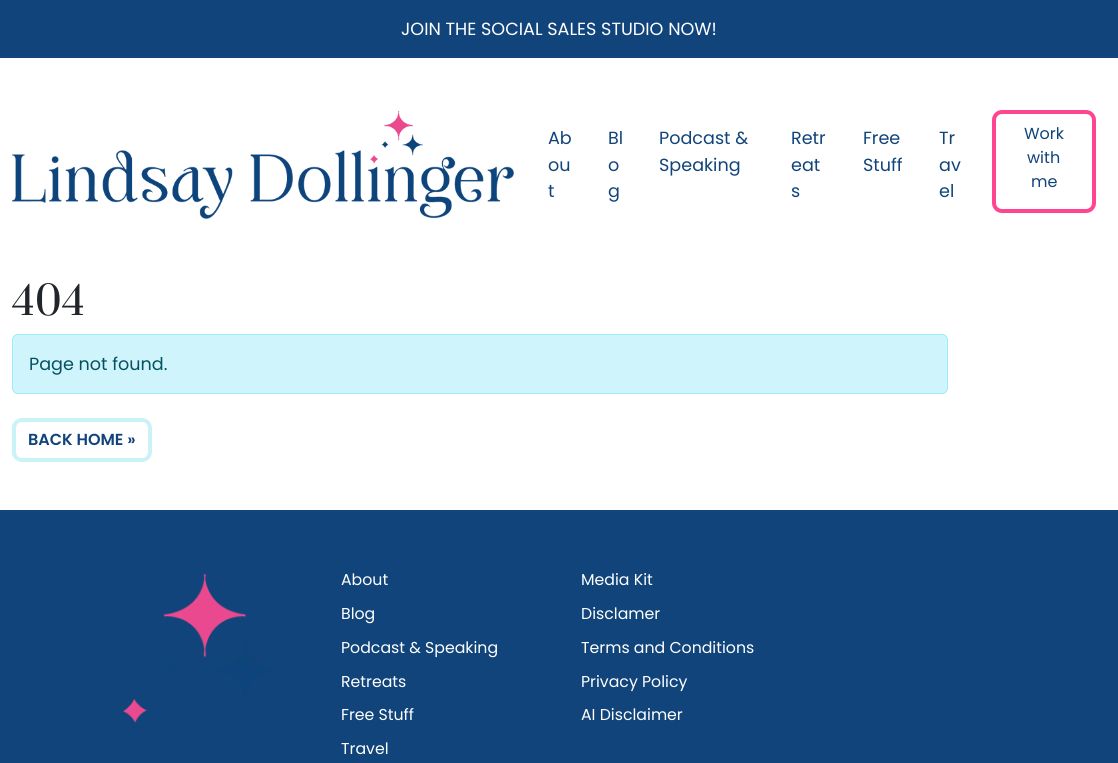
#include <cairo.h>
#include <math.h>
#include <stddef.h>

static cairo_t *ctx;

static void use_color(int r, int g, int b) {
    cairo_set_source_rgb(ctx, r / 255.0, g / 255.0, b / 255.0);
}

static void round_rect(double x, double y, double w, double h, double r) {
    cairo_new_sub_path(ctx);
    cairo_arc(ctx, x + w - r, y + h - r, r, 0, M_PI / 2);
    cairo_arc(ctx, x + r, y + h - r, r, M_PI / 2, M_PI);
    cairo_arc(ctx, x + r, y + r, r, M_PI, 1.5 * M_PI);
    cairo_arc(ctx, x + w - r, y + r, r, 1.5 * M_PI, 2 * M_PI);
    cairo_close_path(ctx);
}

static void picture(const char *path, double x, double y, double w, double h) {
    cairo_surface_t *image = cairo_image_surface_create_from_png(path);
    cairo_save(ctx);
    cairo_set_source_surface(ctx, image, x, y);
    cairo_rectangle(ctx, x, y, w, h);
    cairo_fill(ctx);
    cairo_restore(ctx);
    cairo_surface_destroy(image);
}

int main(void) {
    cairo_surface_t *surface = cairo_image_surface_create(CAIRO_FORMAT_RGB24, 1118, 763);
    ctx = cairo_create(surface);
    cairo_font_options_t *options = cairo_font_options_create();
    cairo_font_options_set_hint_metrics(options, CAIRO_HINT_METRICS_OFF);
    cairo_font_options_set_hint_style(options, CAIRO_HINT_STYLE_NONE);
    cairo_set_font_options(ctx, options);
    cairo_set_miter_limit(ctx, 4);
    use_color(255, 255, 255);
    cairo_paint(ctx);
    use_color(16, 68, 123);
    cairo_rectangle(ctx, 0, 0, 1118, 58);
    cairo_fill(ctx);
    cairo_select_font_face(ctx, "Poppins", CAIRO_FONT_SLANT_NORMAL, CAIRO_FONT_WEIGHT_NORMAL);
    cairo_set_font_size(ctx, 17.6);
    use_color(255, 255, 255);
    cairo_move_to(ctx, 401, 35);
    cairo_show_text(ctx, "JOIN THE SOCIAL SALES STUDIO NOW!");
    picture("img1.png", 12, 111, 502, 108);
    use_color(16, 68, 123);
    cairo_move_to(ctx, 548, 144);
    cairo_show_text(ctx, "Ab");
    cairo_move_to(ctx, 548, 171);
    cairo_show_text(ctx, "ou");
    cairo_move_to(ctx, 548, 197);
    cairo_show_text(ctx, "t");
    cairo_move_to(ctx, 608, 144);
    cairo_show_text(ctx, "Bl");
    cairo_move_to(ctx, 608, 171);
    cairo_show_text(ctx, "o");
    cairo_move_to(ctx, 608, 197);
    cairo_show_text(ctx, "g");
    cairo_move_to(ctx, 659, 144);
    cairo_show_text(ctx, "Podcast &");
    cairo_move_to(ctx, 659, 171);
    cairo_show_text(ctx, "Speaking");
    cairo_move_to(ctx, 791, 144);
    cairo_show_text(ctx, "Retr");
    cairo_move_to(ctx, 791, 171);
    cairo_show_text(ctx, "eat");
    cairo_move_to(ctx, 791, 197);
    cairo_show_text(ctx, "s");
    cairo_move_to(ctx, 863, 144);
    cairo_show_text(ctx, "Free");
    cairo_move_to(ctx, 863, 171);
    cairo_show_text(ctx, "Stuff");
    cairo_move_to(ctx, 939, 144);
    cairo_show_text(ctx, "Tr");
    cairo_move_to(ctx, 939, 171);
    cairo_show_text(ctx, "av");
    cairo_move_to(ctx, 939, 197);
    cairo_show_text(ctx, "el");
    round_rect(994, 112, 100, 99, 8);
    use_color(255, 69, 143);
    cairo_set_line_width(ctx, 4);
    cairo_stroke(ctx);
    cairo_set_font_size(ctx, 16);
    use_color(16, 68, 123);
    cairo_move_to(ctx, 1024, 139);
    cairo_show_text(ctx, "Work");
    cairo_move_to(ctx, 1027, 163);
    cairo_show_text(ctx, "with");
    cairo_move_to(ctx, 1031, 187);
    cairo_show_text(ctx, "me");
    cairo_select_font_face(ctx, "Prata", CAIRO_FONT_SLANT_NORMAL, CAIRO_FONT_WEIGHT_NORMAL);
    cairo_set_font_size(ctx, 39);
    use_color(33, 37, 41);
    cairo_move_to(ctx, 12, 315);
    cairo_show_text(ctx, "404");
    use_color(207, 244, 252);
    round_rect(12.5, 334.5, 935, 59, 5.5);
    cairo_fill_preserve(ctx);
    use_color(158, 234, 249);
    cairo_set_line_width(ctx, 1);
    cairo_stroke(ctx);
    cairo_select_font_face(ctx, "Poppins", CAIRO_FONT_SLANT_NORMAL, CAIRO_FONT_WEIGHT_NORMAL);
    cairo_set_font_size(ctx, 17.6);
    use_color(5, 81, 96);
    cairo_move_to(ctx, 29, 370);
    cairo_show_text(ctx, "Page not found.");
    round_rect(14, 420, 136, 40, 8);
    use_color(202, 243, 248);
    cairo_set_line_width(ctx, 4);
    cairo_stroke(ctx);
    cairo_select_font_face(ctx, "Poppins SemiBold", CAIRO_FONT_SLANT_NORMAL, CAIRO_FONT_WEIGHT_NORMAL);
    cairo_set_font_size(ctx, 16);
    use_color(16, 68, 123);
    cairo_move_to(ctx, 28, 445);
    cairo_show_text(ctx, "BACK HOME »");
    cairo_rectangle(ctx, 0, 510, 1118, 253);
    cairo_fill(ctx);
    picture("img2.png", 123, 574, 150, 160);
    cairo_select_font_face(ctx, "Poppins", CAIRO_FONT_SLANT_NORMAL, CAIRO_FONT_WEIGHT_NORMAL);
    cairo_set_font_size(ctx, 15.75);
    use_color(255, 255, 255);
    cairo_move_to(ctx, 341, 585);
    cairo_show_text(ctx, "About");
    cairo_move_to(ctx, 341, 619);
    cairo_show_text(ctx, "Blog");
    cairo_move_to(ctx, 341, 653);
    cairo_show_text(ctx, "Podcast & Speaking");
    cairo_move_to(ctx, 341, 687);
    cairo_show_text(ctx, "Retreats");
    cairo_move_to(ctx, 341, 720);
    cairo_show_text(ctx, "Free Stuff");
    cairo_move_to(ctx, 341, 754);
    cairo_show_text(ctx, "Travel");
    cairo_move_to(ctx, 581, 585);
    cairo_show_text(ctx, "Media Kit");
    cairo_move_to(ctx, 581, 619);
    cairo_show_text(ctx, "Disclamer");
    cairo_move_to(ctx, 581, 653);
    cairo_show_text(ctx, "Terms and Conditions");
    cairo_move_to(ctx, 581, 687);
    cairo_show_text(ctx, "Privacy Policy");
    cairo_move_to(ctx, 581, 720);
    cairo_show_text(ctx, "AI Disclaimer");
    cairo_surface_write_to_png(surface, "result.png");
    cairo_font_options_destroy(options);
    cairo_destroy(ctx);
    cairo_surface_destroy(surface);
    return 0;
}
